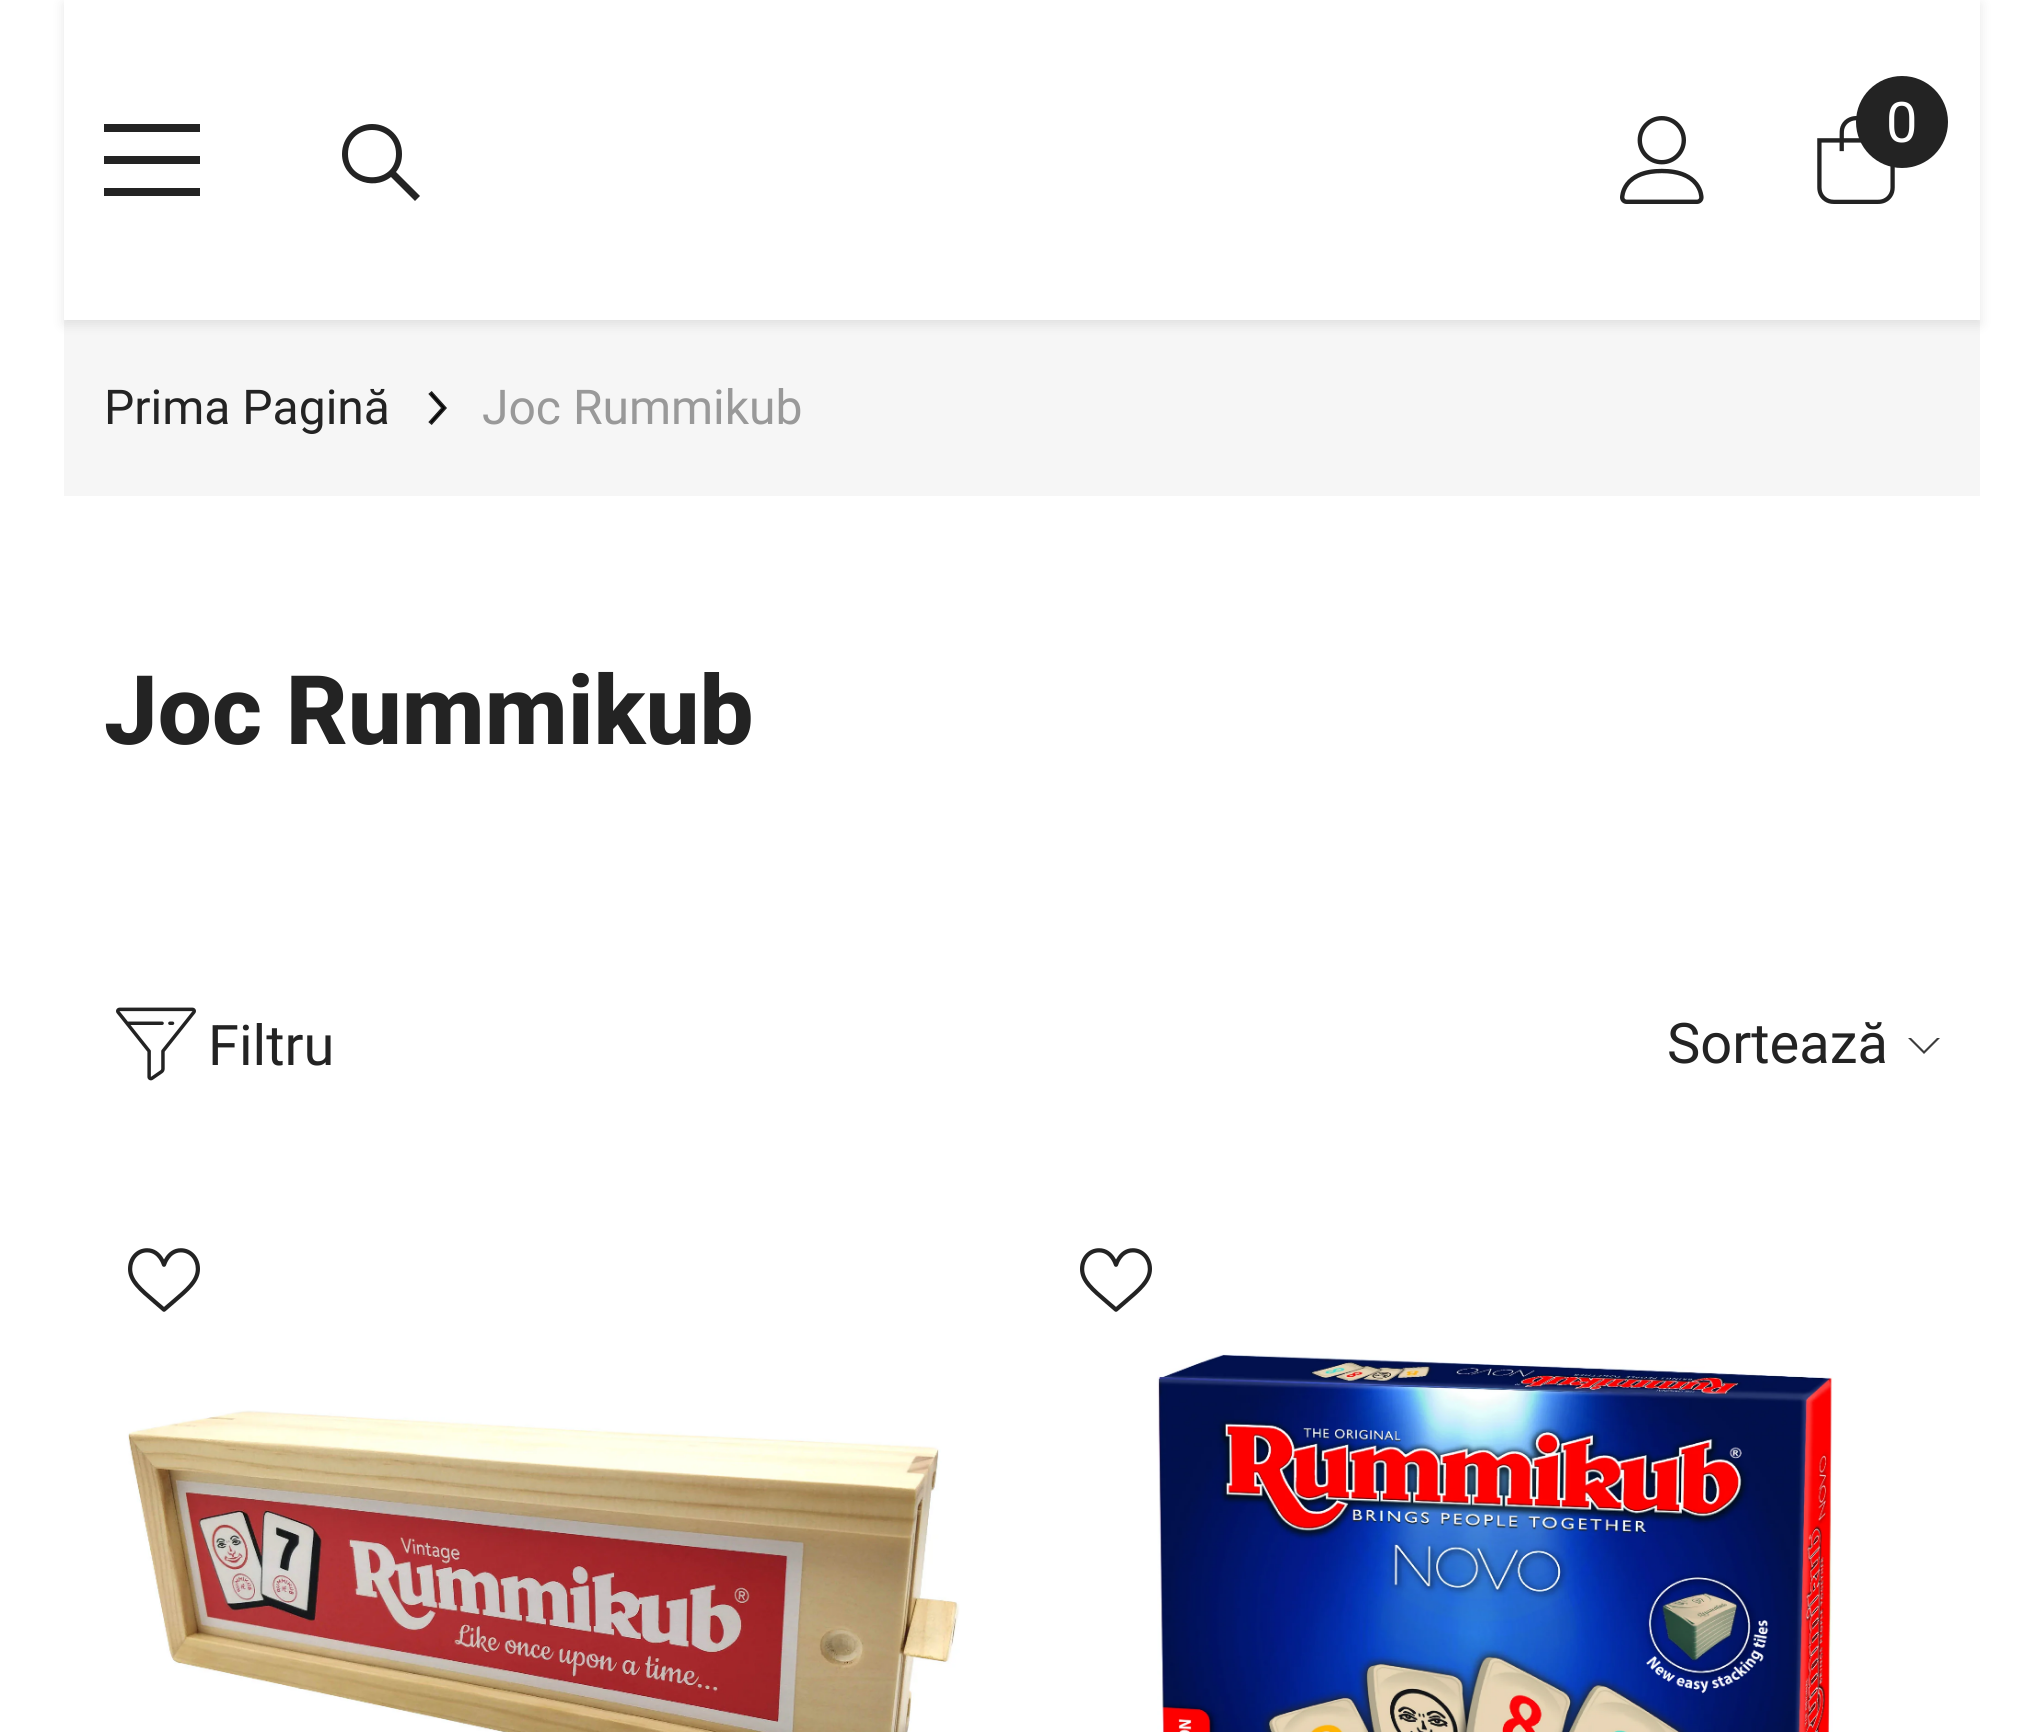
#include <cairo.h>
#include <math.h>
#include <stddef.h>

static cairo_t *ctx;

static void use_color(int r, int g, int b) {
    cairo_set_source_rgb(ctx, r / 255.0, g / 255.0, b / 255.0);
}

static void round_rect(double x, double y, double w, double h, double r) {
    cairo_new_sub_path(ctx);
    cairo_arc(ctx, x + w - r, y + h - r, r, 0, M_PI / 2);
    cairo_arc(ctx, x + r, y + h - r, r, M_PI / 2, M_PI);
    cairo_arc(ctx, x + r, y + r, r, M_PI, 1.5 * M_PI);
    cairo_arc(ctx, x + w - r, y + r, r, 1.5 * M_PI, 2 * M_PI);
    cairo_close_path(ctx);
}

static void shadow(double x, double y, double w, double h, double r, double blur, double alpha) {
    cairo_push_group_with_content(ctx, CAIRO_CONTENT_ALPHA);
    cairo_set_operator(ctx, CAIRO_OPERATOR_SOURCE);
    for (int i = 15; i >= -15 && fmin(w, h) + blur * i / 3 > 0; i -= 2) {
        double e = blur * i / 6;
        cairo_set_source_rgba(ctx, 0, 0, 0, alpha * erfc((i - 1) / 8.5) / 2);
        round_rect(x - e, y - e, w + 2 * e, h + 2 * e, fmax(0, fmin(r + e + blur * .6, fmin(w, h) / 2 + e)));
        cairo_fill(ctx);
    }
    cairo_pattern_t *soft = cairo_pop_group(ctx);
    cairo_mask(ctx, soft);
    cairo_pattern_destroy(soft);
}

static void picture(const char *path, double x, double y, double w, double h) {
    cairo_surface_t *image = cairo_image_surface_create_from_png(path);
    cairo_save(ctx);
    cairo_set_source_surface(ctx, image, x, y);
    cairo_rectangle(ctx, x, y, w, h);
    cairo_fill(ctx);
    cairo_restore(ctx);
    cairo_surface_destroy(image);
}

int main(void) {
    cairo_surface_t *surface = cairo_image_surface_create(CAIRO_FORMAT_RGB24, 2043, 1732);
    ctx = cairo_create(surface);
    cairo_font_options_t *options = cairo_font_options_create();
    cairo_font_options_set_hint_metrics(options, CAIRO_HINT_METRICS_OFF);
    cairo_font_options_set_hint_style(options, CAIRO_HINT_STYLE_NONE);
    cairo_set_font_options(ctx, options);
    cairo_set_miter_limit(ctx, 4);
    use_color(255, 255, 255);
    cairo_paint(ctx);
    use_color(246, 246, 246);
    cairo_rectangle(ctx, 64, 320, 1916, 176);
    cairo_fill(ctx);
    cairo_save(ctx);
    cairo_set_fill_rule(ctx, CAIRO_FILL_RULE_EVEN_ODD);
    cairo_new_path(ctx);
    cairo_move_to(ctx, 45, 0);
    cairo_line_to(ctx, 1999, 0);
    cairo_line_to(ctx, 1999, 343);
    cairo_line_to(ctx, 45, 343);
    cairo_close_path(ctx);
    cairo_move_to(ctx, 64, 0);
    cairo_line_to(ctx, 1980, 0);
    cairo_line_to(ctx, 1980, 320);
    cairo_line_to(ctx, 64, 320);
    cairo_close_path(ctx);
    cairo_clip(ctx);
    use_color(0, 0, 0);
    shadow(64, 4, 1916, 320, 0, 6, 0.1);
    cairo_restore(ctx);
    use_color(35, 35, 35);
    cairo_rectangle(ctx, 104, 156, 96, 8);
    cairo_fill(ctx);
    cairo_rectangle(ctx, 104, 124, 96, 8);
    cairo_fill(ctx);
    cairo_rectangle(ctx, 104, 188, 96, 8);
    cairo_fill(ctx);
    cairo_new_path(ctx);
    cairo_move_to(ctx, 342, 154);
    cairo_curve_to(ctx, 342, 179, 372, 192, 391, 177);
    cairo_line_to(ctx, 415, 201);
    cairo_line_to(ctx, 420, 196);
    cairo_line_to(ctx, 396, 172);
    cairo_curve_to(ctx, 400, 167, 402, 161, 402, 154);
    cairo_curve_to(ctx, 402, 137, 389, 124, 372, 124);
    cairo_curve_to(ctx, 356, 124, 342, 137, 342, 154);
    cairo_close_path(ctx);
    cairo_move_to(ctx, 348, 154);
    cairo_curve_to(ctx, 348, 122, 396, 122, 396, 154);
    cairo_curve_to(ctx, 396, 185, 348, 185, 348, 154);
    cairo_close_path(ctx);
    cairo_fill(ctx);
    picture("img1.png", 1620, 116, 84, 88);
    picture("img2.png", 1817, 116, 78, 88);
    cairo_arc(ctx, 1902, 122, 46, 0, 2 * M_PI);
    cairo_fill(ctx);
    cairo_select_font_face(ctx, "Roboto", CAIRO_FONT_SLANT_NORMAL, CAIRO_FONT_WEIGHT_NORMAL);
    cairo_set_font_size(ctx, 56);
    use_color(255, 255, 255);
    cairo_move_to(ctx, 1886, 142);
    cairo_show_text(ctx, "0");
    cairo_set_font_size(ctx, 48);
    use_color(35, 35, 35);
    cairo_move_to(ctx, 104, 424);
    cairo_show_text(ctx, "Prima Pagină");
    picture("img3.png", 428, 391, 19, 34);
    use_color(153, 153, 153);
    cairo_move_to(ctx, 482, 424);
    cairo_show_text(ctx, "Joc Rummikub");
    cairo_select_font_face(ctx, "Roboto ExtraBold", CAIRO_FONT_SLANT_NORMAL, CAIRO_FONT_WEIGHT_NORMAL);
    cairo_set_font_size(ctx, 96);
    use_color(35, 35, 35);
    cairo_move_to(ctx, 104, 744);
    cairo_show_text(ctx, "Joc Rummikub");
    picture("img4.png", 116, 1007, 80, 74);
    cairo_select_font_face(ctx, "Roboto", CAIRO_FONT_SLANT_NORMAL, CAIRO_FONT_WEIGHT_NORMAL);
    cairo_set_font_size(ctx, 56);
    cairo_move_to(ctx, 208, 1065);
    cairo_show_text(ctx, "Filtru");
    cairo_move_to(ctx, 1667, 1063);
    cairo_show_text(ctx, "Sortează");
    use_color(60, 60, 60);
    cairo_new_path(ctx);
    cairo_move_to(ctx, 1924, 1051);
    cairo_line_to(ctx, 1911, 1038);
    cairo_line_to(ctx, 1908, 1038);
    cairo_line_to(ctx, 1924, 1054);
    cairo_line_to(ctx, 1940, 1038);
    cairo_line_to(ctx, 1937, 1038);
    cairo_close_path(ctx);
    cairo_fill(ctx);
    picture("img5.png", 128, 1248, 72, 64);
    picture("img6.png", 127, 1410, 833, 322);
    picture("img5.png", 1080, 1248, 72, 64);
    picture("img7.png", 1157, 1354, 676, 378);
    cairo_surface_write_to_png(surface, "result.png");
    cairo_font_options_destroy(options);
    cairo_destroy(ctx);
    cairo_surface_destroy(surface);
    return 0;
}
